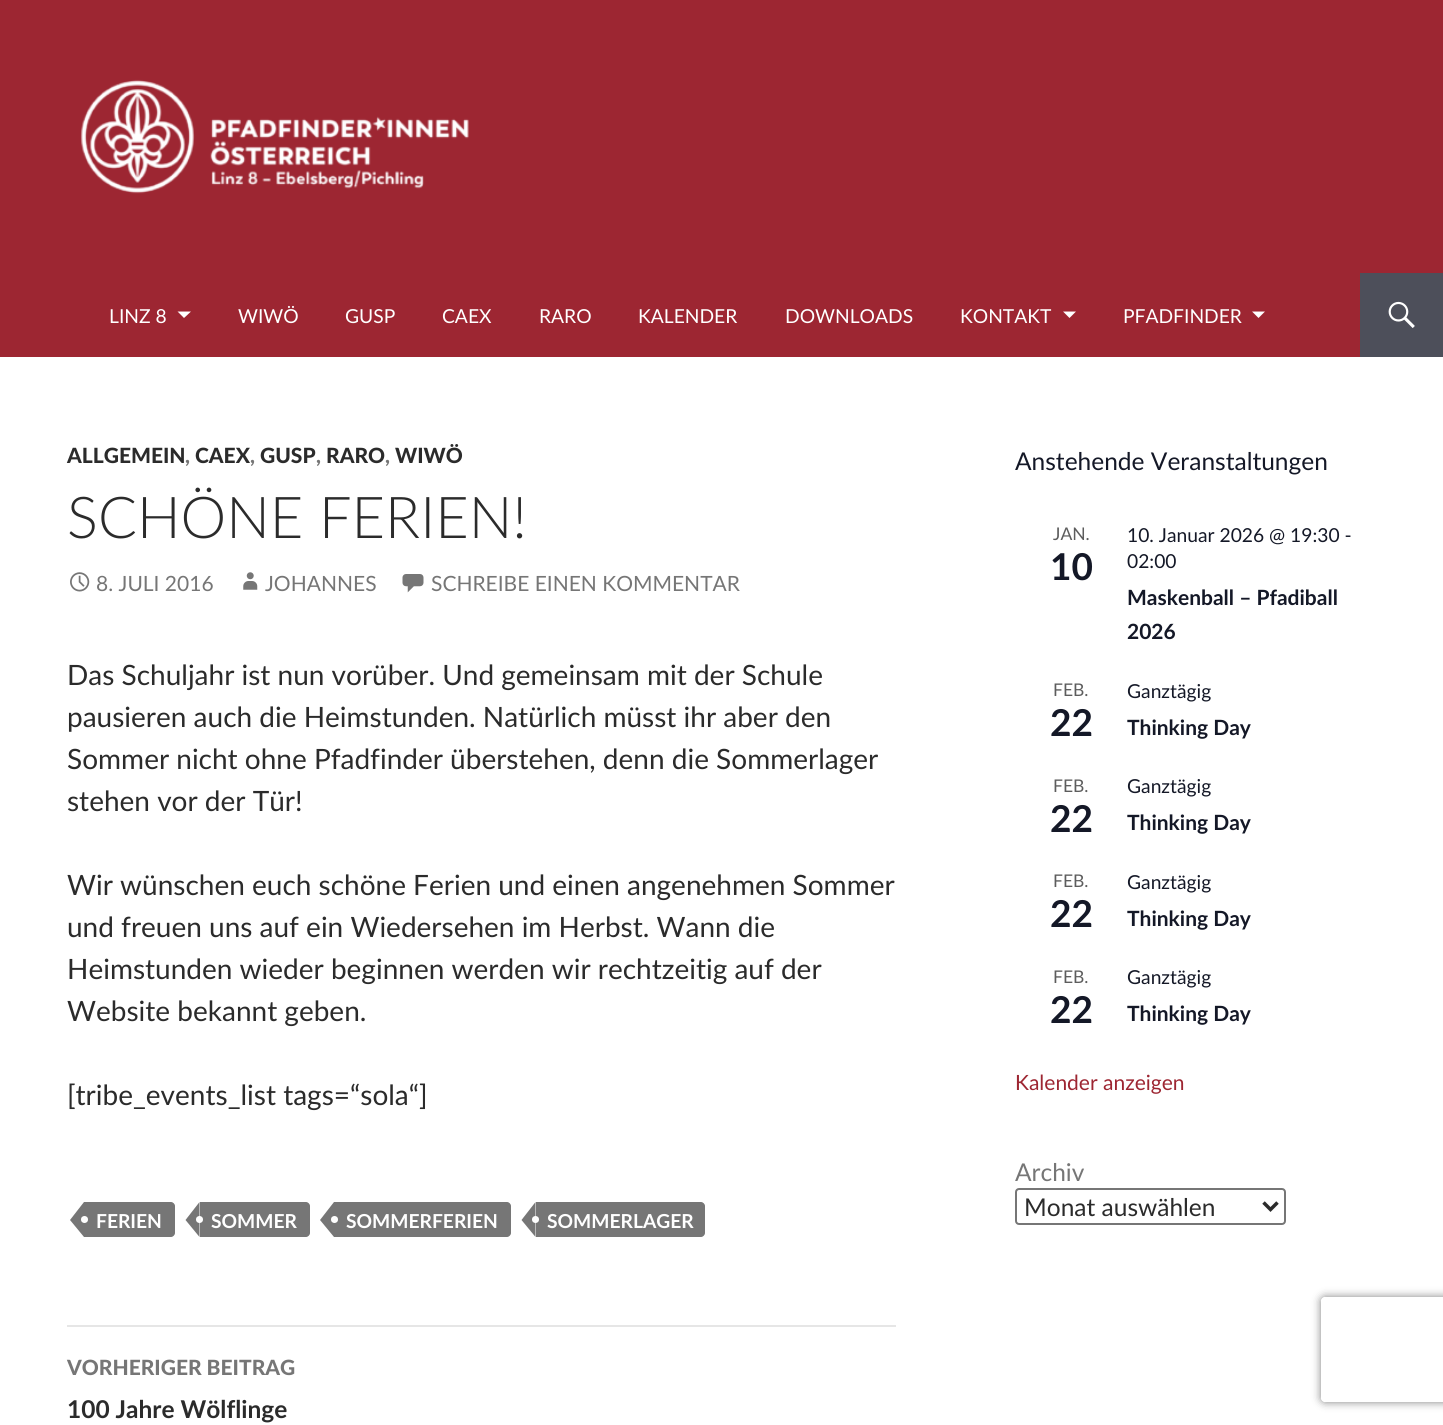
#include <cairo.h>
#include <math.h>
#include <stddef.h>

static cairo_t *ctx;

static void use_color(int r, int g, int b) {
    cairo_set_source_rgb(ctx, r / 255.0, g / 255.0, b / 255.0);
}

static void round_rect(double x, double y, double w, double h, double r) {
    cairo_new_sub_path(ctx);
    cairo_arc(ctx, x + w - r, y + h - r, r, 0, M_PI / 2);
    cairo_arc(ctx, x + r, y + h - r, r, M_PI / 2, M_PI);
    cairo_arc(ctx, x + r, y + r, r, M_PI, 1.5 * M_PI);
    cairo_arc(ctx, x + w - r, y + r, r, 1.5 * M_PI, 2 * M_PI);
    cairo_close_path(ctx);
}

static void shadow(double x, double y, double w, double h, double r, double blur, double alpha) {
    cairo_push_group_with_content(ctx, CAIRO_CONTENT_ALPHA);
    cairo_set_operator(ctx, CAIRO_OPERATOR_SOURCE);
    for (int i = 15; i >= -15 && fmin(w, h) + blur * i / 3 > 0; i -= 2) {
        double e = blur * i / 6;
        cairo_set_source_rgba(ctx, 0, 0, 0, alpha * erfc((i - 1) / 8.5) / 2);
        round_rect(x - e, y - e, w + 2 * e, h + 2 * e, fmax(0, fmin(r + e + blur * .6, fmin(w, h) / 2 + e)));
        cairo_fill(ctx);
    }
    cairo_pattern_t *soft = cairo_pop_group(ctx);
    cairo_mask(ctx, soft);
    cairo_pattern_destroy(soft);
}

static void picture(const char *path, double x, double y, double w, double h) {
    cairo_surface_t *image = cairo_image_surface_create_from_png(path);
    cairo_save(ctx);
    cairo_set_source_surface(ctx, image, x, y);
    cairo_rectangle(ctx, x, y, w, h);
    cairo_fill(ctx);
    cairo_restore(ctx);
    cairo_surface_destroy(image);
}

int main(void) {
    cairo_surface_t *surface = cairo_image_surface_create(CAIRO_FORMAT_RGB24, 1443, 1425);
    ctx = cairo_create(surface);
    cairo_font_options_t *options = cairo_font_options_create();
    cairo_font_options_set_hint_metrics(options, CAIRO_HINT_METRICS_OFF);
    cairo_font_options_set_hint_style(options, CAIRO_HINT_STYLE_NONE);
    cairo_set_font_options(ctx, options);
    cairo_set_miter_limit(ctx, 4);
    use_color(255, 255, 255);
    cairo_paint(ctx);
    picture("img1.png", 0, 0, 1443, 273);
    use_color(157, 38, 50);
    cairo_rectangle(ctx, 0, 273, 1360, 84);
    cairo_fill(ctx);
    cairo_select_font_face(ctx, "Lato", CAIRO_FONT_SLANT_NORMAL, CAIRO_FONT_WEIGHT_NORMAL);
    cairo_set_font_size(ctx, 19.25);
    use_color(255, 255, 255);
    cairo_move_to(ctx, 109, 323);
    cairo_show_text(ctx, "LINZ 8");
    cairo_new_path(ctx);
    cairo_move_to(ctx, 177.5, 311.5);
    cairo_line_to(ctx, 184, 318);
    cairo_line_to(ctx, 191, 311.5);
    cairo_close_path(ctx);
    cairo_fill(ctx);
    cairo_move_to(ctx, 238, 323);
    cairo_show_text(ctx, "WIWÖ");
    cairo_move_to(ctx, 345, 323);
    cairo_show_text(ctx, "GUSP");
    cairo_move_to(ctx, 442, 323);
    cairo_show_text(ctx, "CAEX");
    cairo_move_to(ctx, 539, 323);
    cairo_show_text(ctx, "RARO");
    cairo_move_to(ctx, 638, 323);
    cairo_show_text(ctx, "KALENDER");
    cairo_move_to(ctx, 785, 323);
    cairo_show_text(ctx, "DOWNLOADS");
    cairo_move_to(ctx, 960, 323);
    cairo_show_text(ctx, "KONTAKT");
    cairo_new_path(ctx);
    cairo_move_to(ctx, 1063, 311.5);
    cairo_line_to(ctx, 1069.5, 318);
    cairo_line_to(ctx, 1076, 311.5);
    cairo_close_path(ctx);
    cairo_fill(ctx);
    cairo_move_to(ctx, 1123, 323);
    cairo_show_text(ctx, "PFADFINDER");
    cairo_new_path(ctx);
    cairo_move_to(ctx, 1252, 311.5);
    cairo_line_to(ctx, 1258.5, 318);
    cairo_line_to(ctx, 1265, 311.5);
    cairo_close_path(ctx);
    cairo_fill(ctx);
    use_color(77, 79, 90);
    cairo_rectangle(ctx, 1360, 273, 83, 84);
    cairo_fill(ctx);
    picture("img2.png", 1388, 301, 27, 27);
    cairo_select_font_face(ctx, "Lato Black", CAIRO_FONT_SLANT_NORMAL, CAIRO_FONT_WEIGHT_NORMAL);
    cairo_set_font_size(ctx, 21);
    use_color(43, 43, 43);
    cairo_move_to(ctx, 67, 463);
    cairo_show_text(ctx, "ALLGEMEIN");
    use_color(118, 118, 118);
    cairo_move_to(ctx, 185, 463);
    cairo_show_text(ctx, ",");
    use_color(43, 43, 43);
    cairo_move_to(ctx, 195, 463);
    cairo_show_text(ctx, "CAEX");
    use_color(118, 118, 118);
    cairo_move_to(ctx, 250, 463);
    cairo_show_text(ctx, ",");
    use_color(43, 43, 43);
    cairo_move_to(ctx, 260, 463);
    cairo_show_text(ctx, "GUSP");
    use_color(118, 118, 118);
    cairo_move_to(ctx, 316, 463);
    cairo_show_text(ctx, ",");
    use_color(43, 43, 43);
    cairo_move_to(ctx, 326, 463);
    cairo_show_text(ctx, "RARO");
    use_color(118, 118, 118);
    cairo_move_to(ctx, 385, 463);
    cairo_show_text(ctx, ",");
    use_color(43, 43, 43);
    cairo_move_to(ctx, 395, 463);
    cairo_show_text(ctx, "WIWÖ");
    cairo_select_font_face(ctx, "Lato Light", CAIRO_FONT_SLANT_NORMAL, CAIRO_FONT_WEIGHT_NORMAL);
    cairo_set_font_size(ctx, 57.75);
    cairo_move_to(ctx, 67, 538);
    cairo_show_text(ctx, "SCHÖNE FERIEN!");
    picture("img3.png", 70, 572, 20, 20);
    cairo_select_font_face(ctx, "Lato", CAIRO_FONT_SLANT_NORMAL, CAIRO_FONT_WEIGHT_NORMAL);
    cairo_set_font_size(ctx, 21);
    use_color(118, 118, 118);
    cairo_move_to(ctx, 96, 591);
    cairo_show_text(ctx, "8. JULI 2016");
    picture("img4.png", 243, 572, 15, 18);
    cairo_move_to(ctx, 265, 591);
    cairo_show_text(ctx, "JOHANNES");
    picture("img5.png", 402, 574, 22, 19);
    cairo_move_to(ctx, 431, 591);
    cairo_show_text(ctx, "SCHREIBE EINEN KOMMENTAR");
    cairo_set_font_size(ctx, 28);
    use_color(43, 43, 43);
    cairo_move_to(ctx, 67, 685);
    cairo_show_text(ctx, "Das Schuljahr ist nun vorüber. Und gemeinsam mit der Schule");
    cairo_move_to(ctx, 67, 727);
    cairo_show_text(ctx, "pausieren auch die Heimstunden. Natürlich müsst ihr aber den");
    cairo_move_to(ctx, 67, 769);
    cairo_show_text(ctx, "Sommer nicht ohne Pfadfinder überstehen, denn die Sommerlager");
    cairo_move_to(ctx, 67, 811);
    cairo_show_text(ctx, "stehen vor der Tür!");
    cairo_move_to(ctx, 67, 895);
    cairo_show_text(ctx, "Wir wünschen euch schöne Ferien und einen angenehmen Sommer");
    cairo_move_to(ctx, 67, 937);
    cairo_show_text(ctx, "und freuen uns auf ein Wiedersehen im Herbst. Wann die");
    cairo_move_to(ctx, 67, 979);
    cairo_show_text(ctx, "Heimstunden wieder beginnen werden wir rechtzeitig auf der");
    cairo_move_to(ctx, 67, 1021);
    cairo_show_text(ctx, "Website bekannt geben.");
    cairo_move_to(ctx, 67, 1105);
    cairo_show_text(ctx, "[tribe_events_list tags=“sola“]");
    use_color(118, 118, 118);
    cairo_new_path(ctx);
    cairo_move_to(ctx, 84, 1202);
    cairo_line_to(ctx, 171, 1202);
    cairo_curve_to(ctx, 173, 1202, 175, 1204, 175, 1206);
    cairo_line_to(ctx, 175, 1233);
    cairo_curve_to(ctx, 175, 1235, 173, 1237, 171, 1237);
    cairo_line_to(ctx, 84, 1237);
    cairo_close_path(ctx);
    cairo_fill(ctx);
    cairo_new_path(ctx);
    cairo_move_to(ctx, 84, 1202);
    cairo_line_to(ctx, 84, 1237);
    cairo_line_to(ctx, 70, 1220);
    cairo_close_path(ctx);
    cairo_fill(ctx);
    use_color(255, 255, 255);
    cairo_arc(ctx, 84.5, 1219.5, 3.5, 0, 2 * M_PI);
    cairo_fill(ctx);
    cairo_select_font_face(ctx, "Lato", CAIRO_FONT_SLANT_NORMAL, CAIRO_FONT_WEIGHT_BOLD);
    cairo_set_font_size(ctx, 19.25);
    cairo_move_to(ctx, 96, 1228);
    cairo_show_text(ctx, "FERIEN");
    use_color(118, 118, 118);
    cairo_new_path(ctx);
    cairo_move_to(ctx, 200, 1202);
    cairo_line_to(ctx, 306, 1202);
    cairo_curve_to(ctx, 308, 1202, 310, 1204, 310, 1206);
    cairo_line_to(ctx, 310, 1233);
    cairo_curve_to(ctx, 310, 1235, 308, 1237, 306, 1237);
    cairo_line_to(ctx, 200, 1237);
    cairo_close_path(ctx);
    cairo_fill(ctx);
    cairo_new_path(ctx);
    cairo_move_to(ctx, 199.5, 1202);
    cairo_line_to(ctx, 199.5, 1237);
    cairo_line_to(ctx, 185.5, 1220);
    cairo_close_path(ctx);
    cairo_fill(ctx);
    use_color(255, 255, 255);
    cairo_move_to(ctx, 211, 1228);
    cairo_show_text(ctx, "SOMMER");
    cairo_new_path(ctx);
    cairo_arc(ctx, 199.5, 1219.5, 3.5, 0, 2 * M_PI);
    cairo_fill(ctx);
    use_color(118, 118, 118);
    cairo_new_path(ctx);
    cairo_move_to(ctx, 334, 1202);
    cairo_line_to(ctx, 507, 1202);
    cairo_curve_to(ctx, 509, 1202, 511, 1204, 511, 1206);
    cairo_line_to(ctx, 511, 1233);
    cairo_curve_to(ctx, 511, 1235, 509, 1237, 507, 1237);
    cairo_line_to(ctx, 334, 1237);
    cairo_close_path(ctx);
    cairo_fill(ctx);
    cairo_new_path(ctx);
    cairo_move_to(ctx, 334, 1202);
    cairo_line_to(ctx, 334, 1237);
    cairo_line_to(ctx, 320, 1220);
    cairo_close_path(ctx);
    cairo_fill(ctx);
    use_color(255, 255, 255);
    cairo_arc(ctx, 334.5, 1219.5, 3.5, 0, 2 * M_PI);
    cairo_fill(ctx);
    cairo_move_to(ctx, 346, 1228);
    cairo_show_text(ctx, "SOMMERFERIEN");
    use_color(118, 118, 118);
    cairo_new_path(ctx);
    cairo_move_to(ctx, 536, 1202);
    cairo_line_to(ctx, 701, 1202);
    cairo_curve_to(ctx, 703, 1202, 705, 1204, 705, 1206);
    cairo_line_to(ctx, 705, 1233);
    cairo_curve_to(ctx, 705, 1235, 703, 1237, 701, 1237);
    cairo_line_to(ctx, 536, 1237);
    cairo_close_path(ctx);
    cairo_fill(ctx);
    cairo_new_path(ctx);
    cairo_move_to(ctx, 535.5, 1202);
    cairo_line_to(ctx, 535.5, 1237);
    cairo_line_to(ctx, 521.5, 1220);
    cairo_close_path(ctx);
    cairo_fill(ctx);
    use_color(255, 255, 255);
    cairo_move_to(ctx, 547, 1228);
    cairo_show_text(ctx, "SOMMERLAGER");
    cairo_new_path(ctx);
    cairo_arc(ctx, 535.5, 1219.5, 3.5, 0, 2 * M_PI);
    cairo_fill(ctx);
    use_color(230, 230, 230);
    cairo_rectangle(ctx, 67, 1325, 829, 2);
    cairo_fill(ctx);
    cairo_select_font_face(ctx, "Lato Black", CAIRO_FONT_SLANT_NORMAL, CAIRO_FONT_WEIGHT_NORMAL);
    cairo_set_font_size(ctx, 21);
    use_color(118, 118, 118);
    cairo_move_to(ctx, 67, 1375);
    cairo_show_text(ctx, "VORHERIGER BEITRAG");
    cairo_select_font_face(ctx, "Lato", CAIRO_FONT_SLANT_NORMAL, CAIRO_FONT_WEIGHT_BOLD);
    cairo_set_font_size(ctx, 24.5);
    use_color(43, 43, 43);
    cairo_move_to(ctx, 67, 1418);
    cairo_show_text(ctx, "100 Jahre Wölflinge");
    cairo_select_font_face(ctx, "Lato", CAIRO_FONT_SLANT_NORMAL, CAIRO_FONT_WEIGHT_NORMAL);
    use_color(20, 24, 39);
    cairo_move_to(ctx, 1015, 470);
    cairo_show_text(ctx, "Anstehende Veranstaltungen");
    cairo_set_font_size(ctx, 17.5);
    use_color(93, 93, 93);
    cairo_move_to(ctx, 1053, 540);
    cairo_show_text(ctx, "JAN.");
    cairo_select_font_face(ctx, "Lato", CAIRO_FONT_SLANT_NORMAL, CAIRO_FONT_WEIGHT_BOLD);
    cairo_set_font_size(ctx, 37);
    use_color(20, 24, 39);
    cairo_move_to(ctx, 1050, 580);
    cairo_show_text(ctx, "10");
    cairo_select_font_face(ctx, "Lato", CAIRO_FONT_SLANT_NORMAL, CAIRO_FONT_WEIGHT_NORMAL);
    cairo_set_font_size(ctx, 19.25);
    cairo_move_to(ctx, 1127, 542);
    cairo_show_text(ctx, "10. Januar 2026 @ 19:30 -");
    cairo_move_to(ctx, 1127, 568);
    cairo_show_text(ctx, "02:00");
    cairo_select_font_face(ctx, "Lato", CAIRO_FONT_SLANT_NORMAL, CAIRO_FONT_WEIGHT_BOLD);
    cairo_set_font_size(ctx, 21);
    cairo_move_to(ctx, 1127, 605);
    cairo_show_text(ctx, "Maskenball – Pfadiball");
    cairo_move_to(ctx, 1127, 639);
    cairo_show_text(ctx, "2026");
    cairo_select_font_face(ctx, "Lato", CAIRO_FONT_SLANT_NORMAL, CAIRO_FONT_WEIGHT_NORMAL);
    cairo_set_font_size(ctx, 17.5);
    use_color(93, 93, 93);
    cairo_move_to(ctx, 1053, 696);
    cairo_show_text(ctx, "FEB.");
    cairo_select_font_face(ctx, "Lato", CAIRO_FONT_SLANT_NORMAL, CAIRO_FONT_WEIGHT_BOLD);
    cairo_set_font_size(ctx, 37);
    use_color(20, 24, 39);
    cairo_move_to(ctx, 1050, 736);
    cairo_show_text(ctx, "22");
    cairo_select_font_face(ctx, "Lato", CAIRO_FONT_SLANT_NORMAL, CAIRO_FONT_WEIGHT_NORMAL);
    cairo_set_font_size(ctx, 19.25);
    cairo_move_to(ctx, 1127, 698);
    cairo_show_text(ctx, "Ganztägig");
    cairo_select_font_face(ctx, "Lato", CAIRO_FONT_SLANT_NORMAL, CAIRO_FONT_WEIGHT_BOLD);
    cairo_set_font_size(ctx, 21);
    cairo_move_to(ctx, 1127, 735);
    cairo_show_text(ctx, "Thinking Day");
    cairo_select_font_face(ctx, "Lato", CAIRO_FONT_SLANT_NORMAL, CAIRO_FONT_WEIGHT_NORMAL);
    cairo_set_font_size(ctx, 17.5);
    use_color(93, 93, 93);
    cairo_move_to(ctx, 1053, 792);
    cairo_show_text(ctx, "FEB.");
    cairo_select_font_face(ctx, "Lato", CAIRO_FONT_SLANT_NORMAL, CAIRO_FONT_WEIGHT_BOLD);
    cairo_set_font_size(ctx, 37);
    use_color(20, 24, 39);
    cairo_move_to(ctx, 1050, 832);
    cairo_show_text(ctx, "22");
    cairo_select_font_face(ctx, "Lato", CAIRO_FONT_SLANT_NORMAL, CAIRO_FONT_WEIGHT_NORMAL);
    cairo_set_font_size(ctx, 19.25);
    cairo_move_to(ctx, 1127, 793);
    cairo_show_text(ctx, "Ganztägig");
    cairo_select_font_face(ctx, "Lato", CAIRO_FONT_SLANT_NORMAL, CAIRO_FONT_WEIGHT_BOLD);
    cairo_set_font_size(ctx, 21);
    cairo_move_to(ctx, 1127, 830);
    cairo_show_text(ctx, "Thinking Day");
    cairo_select_font_face(ctx, "Lato", CAIRO_FONT_SLANT_NORMAL, CAIRO_FONT_WEIGHT_NORMAL);
    cairo_set_font_size(ctx, 17.5);
    use_color(93, 93, 93);
    cairo_move_to(ctx, 1053, 887);
    cairo_show_text(ctx, "FEB.");
    cairo_select_font_face(ctx, "Lato", CAIRO_FONT_SLANT_NORMAL, CAIRO_FONT_WEIGHT_BOLD);
    cairo_set_font_size(ctx, 37);
    use_color(20, 24, 39);
    cairo_move_to(ctx, 1050, 927);
    cairo_show_text(ctx, "22");
    cairo_select_font_face(ctx, "Lato", CAIRO_FONT_SLANT_NORMAL, CAIRO_FONT_WEIGHT_NORMAL);
    cairo_set_font_size(ctx, 19.25);
    cairo_move_to(ctx, 1127, 889);
    cairo_show_text(ctx, "Ganztägig");
    cairo_select_font_face(ctx, "Lato", CAIRO_FONT_SLANT_NORMAL, CAIRO_FONT_WEIGHT_BOLD);
    cairo_set_font_size(ctx, 21);
    cairo_move_to(ctx, 1127, 926);
    cairo_show_text(ctx, "Thinking Day");
    cairo_select_font_face(ctx, "Lato", CAIRO_FONT_SLANT_NORMAL, CAIRO_FONT_WEIGHT_NORMAL);
    cairo_set_font_size(ctx, 17.5);
    use_color(93, 93, 93);
    cairo_move_to(ctx, 1053, 983);
    cairo_show_text(ctx, "FEB.");
    cairo_select_font_face(ctx, "Lato", CAIRO_FONT_SLANT_NORMAL, CAIRO_FONT_WEIGHT_BOLD);
    cairo_set_font_size(ctx, 37);
    use_color(20, 24, 39);
    cairo_move_to(ctx, 1050, 1023);
    cairo_show_text(ctx, "22");
    cairo_select_font_face(ctx, "Lato", CAIRO_FONT_SLANT_NORMAL, CAIRO_FONT_WEIGHT_NORMAL);
    cairo_set_font_size(ctx, 19.25);
    cairo_move_to(ctx, 1127, 984);
    cairo_show_text(ctx, "Ganztägig");
    cairo_select_font_face(ctx, "Lato", CAIRO_FONT_SLANT_NORMAL, CAIRO_FONT_WEIGHT_BOLD);
    cairo_set_font_size(ctx, 21);
    cairo_move_to(ctx, 1127, 1021);
    cairo_show_text(ctx, "Thinking Day");
    cairo_select_font_face(ctx, "Lato", CAIRO_FONT_SLANT_NORMAL, CAIRO_FONT_WEIGHT_NORMAL);
    use_color(157, 38, 50);
    cairo_move_to(ctx, 1015, 1090);
    cairo_show_text(ctx, "Kalender anzeigen");
    cairo_set_font_size(ctx, 24.5);
    use_color(118, 118, 118);
    cairo_move_to(ctx, 1015, 1181);
    cairo_show_text(ctx, "Archiv");
    round_rect(1016, 1189, 269, 35, 3);
    cairo_stroke(ctx);
    cairo_new_path(ctx);
    cairo_move_to(ctx, 1263.5, 1202.5);
    cairo_line_to(ctx, 1270.5, 1209.5);
    cairo_line_to(ctx, 1277.5, 1202.5);
    use_color(43, 43, 43);
    cairo_set_line_width(ctx, 3.5);
    cairo_stroke(ctx);
    cairo_move_to(ctx, 1024, 1216);
    cairo_show_text(ctx, "Monat auswählen");
    cairo_save(ctx);
    cairo_set_fill_rule(ctx, CAIRO_FILL_RULE_EVEN_ODD);
    cairo_new_path(ctx);
    cairo_move_to(ctx, 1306, 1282);
    cairo_line_to(ctx, 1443, 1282);
    cairo_line_to(ctx, 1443, 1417);
    cairo_line_to(ctx, 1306, 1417);
    cairo_close_path(ctx);
    cairo_move_to(ctx, 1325, 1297);
    cairo_line_to(ctx, 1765, 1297);
    cairo_curve_to(ctx, 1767, 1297, 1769, 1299, 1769, 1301);
    cairo_line_to(ctx, 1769, 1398);
    cairo_curve_to(ctx, 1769, 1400, 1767, 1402, 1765, 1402);
    cairo_line_to(ctx, 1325, 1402);
    cairo_curve_to(ctx, 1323, 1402, 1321, 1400, 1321, 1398);
    cairo_line_to(ctx, 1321, 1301);
    cairo_curve_to(ctx, 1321, 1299, 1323, 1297, 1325, 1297);
    cairo_close_path(ctx);
    cairo_clip(ctx);
    use_color(128, 128, 128);
    shadow(1321, 1297, 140, 105, 4, 4.5, 1);
    cairo_restore(ctx);
    cairo_surface_write_to_png(surface, "result.png");
    cairo_font_options_destroy(options);
    cairo_destroy(ctx);
    cairo_surface_destroy(surface);
    return 0;
}
